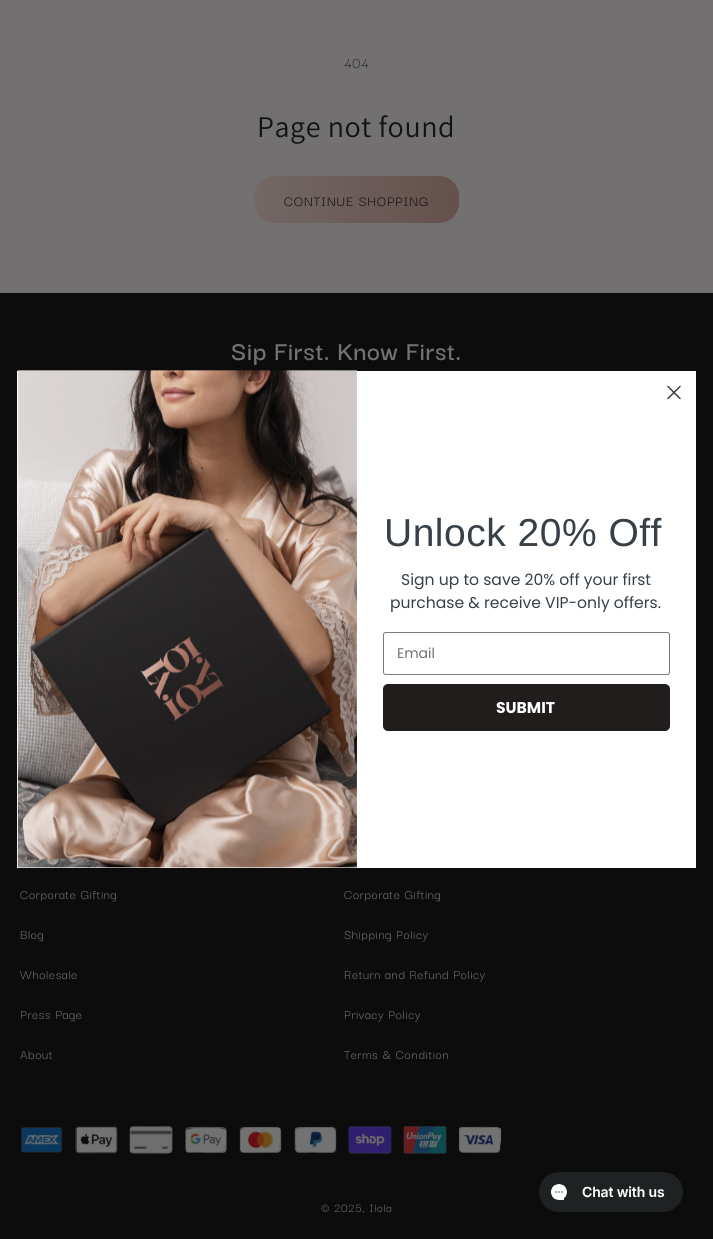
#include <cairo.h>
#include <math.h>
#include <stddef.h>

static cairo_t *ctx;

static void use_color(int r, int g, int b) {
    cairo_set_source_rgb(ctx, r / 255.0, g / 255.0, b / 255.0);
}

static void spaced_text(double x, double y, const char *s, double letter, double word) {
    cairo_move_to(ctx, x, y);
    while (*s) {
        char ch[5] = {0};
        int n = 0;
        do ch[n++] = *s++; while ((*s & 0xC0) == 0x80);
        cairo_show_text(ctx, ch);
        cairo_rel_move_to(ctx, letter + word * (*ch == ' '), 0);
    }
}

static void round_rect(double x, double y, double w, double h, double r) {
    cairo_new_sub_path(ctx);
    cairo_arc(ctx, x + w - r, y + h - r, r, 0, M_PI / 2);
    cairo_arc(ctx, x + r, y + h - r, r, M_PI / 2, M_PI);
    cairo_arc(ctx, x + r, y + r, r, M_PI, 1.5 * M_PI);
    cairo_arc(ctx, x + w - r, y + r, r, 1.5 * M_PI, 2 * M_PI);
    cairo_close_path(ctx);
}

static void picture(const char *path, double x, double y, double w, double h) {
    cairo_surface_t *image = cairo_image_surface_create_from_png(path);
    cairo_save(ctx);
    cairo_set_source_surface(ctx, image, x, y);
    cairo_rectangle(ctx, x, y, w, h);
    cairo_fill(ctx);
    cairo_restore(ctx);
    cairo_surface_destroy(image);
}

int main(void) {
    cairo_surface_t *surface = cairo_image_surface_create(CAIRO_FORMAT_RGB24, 713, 1239);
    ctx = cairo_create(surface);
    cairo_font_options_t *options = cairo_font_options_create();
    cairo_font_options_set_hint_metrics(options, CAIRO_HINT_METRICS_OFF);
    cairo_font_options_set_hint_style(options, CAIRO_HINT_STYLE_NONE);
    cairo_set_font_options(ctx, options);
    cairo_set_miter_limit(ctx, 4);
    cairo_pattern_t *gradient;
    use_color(114, 112, 112);
    cairo_paint(ctx);
    cairo_select_font_face(ctx, "Darker Grotesque", CAIRO_FONT_SLANT_NORMAL, CAIRO_FONT_WEIGHT_NORMAL);
    cairo_set_font_size(ctx, 16);
    use_color(43, 42, 42);
    spaced_text(344, 68, "404", 0.6, 0);
    cairo_select_font_face(ctx, "Assistant", CAIRO_FONT_SLANT_NORMAL, CAIRO_FONT_WEIGHT_NORMAL);
    cairo_set_font_size(ctx, 30);
    use_color(19, 19, 19);
    spaced_text(257, 137, "Page not found", 0.6, 0);
    gradient = cairo_pattern_create_linear(254, 200, 459, 200);
    cairo_pattern_add_color_stop_rgba(gradient, 0, 0.447, 0.408, 0.4, 1);
    cairo_pattern_add_color_stop_rgba(gradient, 1, 0.396, 0.314, 0.298, 1);
    cairo_set_source(ctx, gradient);
    cairo_pattern_destroy(gradient);
    round_rect(254, 176, 205, 47, 20);
    cairo_fill(ctx);
    cairo_select_font_face(ctx, "Darker Grotesque", CAIRO_FONT_SLANT_NORMAL, CAIRO_FONT_WEIGHT_NORMAL);
    cairo_set_font_size(ctx, 15);
    use_color(12, 12, 12);
    spaced_text(284, 206, "CONTINUE SHOPPING", 1, 0);
    cairo_rectangle(ctx, 0, 293, 713, 946);
    cairo_fill(ctx);
    cairo_select_font_face(ctx, "Darker Grotesque SemiBold", CAIRO_FONT_SLANT_NORMAL, CAIRO_FONT_WEIGHT_NORMAL);
    cairo_set_font_size(ctx, 28);
    use_color(114, 114, 114);
    spaced_text(231, 360, "Sip First. Know First.", 0.6, 0);
    cairo_select_font_face(ctx, "Darker Grotesque", CAIRO_FONT_SLANT_NORMAL, CAIRO_FONT_WEIGHT_NORMAL);
    cairo_set_font_size(ctx, 14);
    spaced_text(20, 899, "Corporate Gifting", 0.6, 0);
    spaced_text(20, 939, "Blog", 0.6, 0);
    spaced_text(20, 979, "Wholesale", 0.6, 0);
    spaced_text(20, 1019, "Press Page", 0.6, 0);
    spaced_text(20, 1059, "About", 0.6, 0);
    spaced_text(344, 899, "Corporate Gifting", 0.6, 0);
    spaced_text(344, 939, "Shipping Policy", 0.6, 0);
    spaced_text(344, 979, "Return and Refund Policy", 0.6, 0);
    spaced_text(344, 1019, "Privacy Policy", 0.6, 0);
    spaced_text(344, 1059, "Terms & Condition", 0.6, 0);
    picture("img1.png", 21, 1126, 480, 28);
    cairo_set_font_size(ctx, 13);
    spaced_text(321, 1212, "© 2025, Ilola", 0.75, 0);
    use_color(255, 255, 255);
    cairo_rectangle(ctx, 17, 371, 679, 497);
    cairo_fill(ctx);
    cairo_new_path(ctx);
    cairo_move_to(ctx, 668, 386.5);
    cairo_line_to(ctx, 680, 398.5);
    cairo_move_to(ctx, 668, 398.5);
    cairo_line_to(ctx, 680, 386.5);
    cairo_close_path(ctx);
    use_color(55, 63, 71);
    cairo_set_line_width(ctx, 1.5);
    cairo_set_line_cap(ctx, CAIRO_LINE_CAP_ROUND);
    cairo_set_line_join(ctx, CAIRO_LINE_JOIN_ROUND);
    cairo_stroke(ctx);
    picture("img2.png", 17, 370, 340, 499);
    cairo_select_font_face(ctx, "Liberation Sans", CAIRO_FONT_SLANT_NORMAL, CAIRO_FONT_WEIGHT_NORMAL);
    cairo_set_font_size(ctx, 39);
    spaced_text(384, 546, "Unlock 20% Off", 0.5, 0);
    cairo_select_font_face(ctx, "Poppins", CAIRO_FONT_SLANT_NORMAL, CAIRO_FONT_WEIGHT_NORMAL);
    cairo_set_font_size(ctx, 15.6);
    cairo_move_to(ctx, 401, 585);
    cairo_show_text(ctx, "Sign up to save 20% off your first");
    cairo_move_to(ctx, 390, 608);
    cairo_show_text(ctx, "purchase & receive VIP-only offers.");
    round_rect(383.45, 632.45, 286.1, 42.1, 2.55);
    use_color(96, 106, 114);
    cairo_set_line_width(ctx, 0.9);
    cairo_set_line_cap(ctx, CAIRO_LINE_CAP_BUTT);
    cairo_set_line_join(ctx, CAIRO_LINE_JOIN_MITER);
    cairo_stroke(ctx);
    cairo_set_font_size(ctx, 14);
    use_color(114, 114, 114);
    cairo_move_to(ctx, 397, 658);
    cairo_show_text(ctx, "Email");
    use_color(33, 29, 28);
    round_rect(383, 684, 287, 47, 5);
    cairo_fill(ctx);
    cairo_select_font_face(ctx, "Poppins", CAIRO_FONT_SLANT_NORMAL, CAIRO_FONT_WEIGHT_BOLD);
    cairo_set_font_size(ctx, 15.6);
    use_color(255, 255, 255);
    cairo_move_to(ctx, 496, 713);
    cairo_show_text(ctx, "SUBMIT");
    picture("img3.png", 539, 1172, 144, 40);
    cairo_surface_write_to_png(surface, "result.png");
    cairo_font_options_destroy(options);
    cairo_destroy(ctx);
    cairo_surface_destroy(surface);
    return 0;
}
